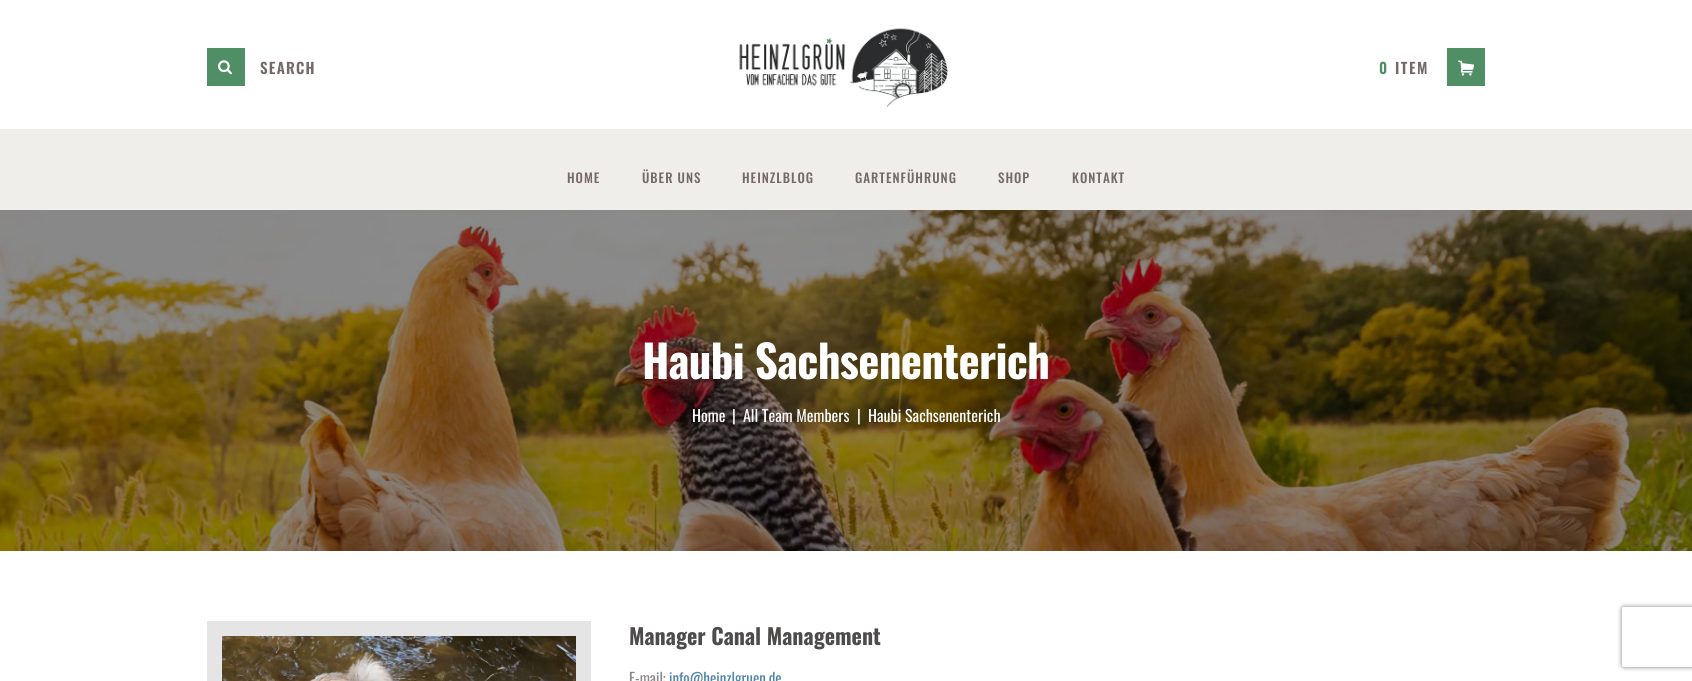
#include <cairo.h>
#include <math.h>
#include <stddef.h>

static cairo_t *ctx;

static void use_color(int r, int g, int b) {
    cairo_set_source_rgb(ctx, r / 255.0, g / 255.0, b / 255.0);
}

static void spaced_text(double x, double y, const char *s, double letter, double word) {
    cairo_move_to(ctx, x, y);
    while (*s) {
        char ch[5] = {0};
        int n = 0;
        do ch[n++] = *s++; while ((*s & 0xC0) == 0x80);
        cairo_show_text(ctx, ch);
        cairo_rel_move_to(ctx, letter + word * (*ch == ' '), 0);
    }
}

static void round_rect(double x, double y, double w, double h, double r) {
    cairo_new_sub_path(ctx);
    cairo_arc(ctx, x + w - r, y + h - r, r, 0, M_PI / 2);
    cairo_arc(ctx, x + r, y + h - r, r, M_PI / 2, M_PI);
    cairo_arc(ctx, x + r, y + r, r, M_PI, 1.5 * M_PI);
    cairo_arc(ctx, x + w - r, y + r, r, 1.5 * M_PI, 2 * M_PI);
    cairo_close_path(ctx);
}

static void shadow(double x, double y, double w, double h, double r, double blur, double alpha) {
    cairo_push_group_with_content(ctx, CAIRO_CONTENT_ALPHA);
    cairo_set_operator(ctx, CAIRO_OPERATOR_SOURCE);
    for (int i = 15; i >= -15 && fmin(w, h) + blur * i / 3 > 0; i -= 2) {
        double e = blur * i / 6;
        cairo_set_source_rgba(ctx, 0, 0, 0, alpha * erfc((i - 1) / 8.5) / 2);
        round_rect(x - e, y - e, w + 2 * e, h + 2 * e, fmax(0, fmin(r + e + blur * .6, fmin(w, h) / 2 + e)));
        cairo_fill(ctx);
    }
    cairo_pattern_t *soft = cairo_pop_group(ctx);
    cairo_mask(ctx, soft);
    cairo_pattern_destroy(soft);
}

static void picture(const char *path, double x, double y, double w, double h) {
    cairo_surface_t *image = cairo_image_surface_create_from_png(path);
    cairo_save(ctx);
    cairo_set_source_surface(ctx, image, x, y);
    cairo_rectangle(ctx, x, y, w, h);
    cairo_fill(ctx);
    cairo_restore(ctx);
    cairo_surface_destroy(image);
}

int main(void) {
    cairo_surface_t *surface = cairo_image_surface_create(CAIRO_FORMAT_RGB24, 1692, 681);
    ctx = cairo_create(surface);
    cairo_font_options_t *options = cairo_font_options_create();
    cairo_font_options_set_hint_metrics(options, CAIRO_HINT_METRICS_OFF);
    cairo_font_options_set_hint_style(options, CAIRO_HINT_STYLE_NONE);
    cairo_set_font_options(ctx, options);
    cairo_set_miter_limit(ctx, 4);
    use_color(255, 255, 255);
    cairo_paint(ctx);
    use_color(80, 143, 102);
    cairo_rectangle(ctx, 207, 48, 38, 38);
    cairo_fill(ctx);
    picture("img1.png", 218, 60, 14, 15);
    cairo_select_font_face(ctx, "Oswald SemiBold", CAIRO_FONT_SLANT_NORMAL, CAIRO_FONT_WEIGHT_NORMAL);
    cairo_set_font_size(ctx, 15);
    use_color(117, 105, 105);
    spaced_text(260, 74, "SEARCH", 1.25, 0);
    picture("img2.png", 739, 28, 209, 80);
    use_color(80, 143, 102);
    spaced_text(1379, 74, "0", 1.5, 0);
    use_color(117, 105, 105);
    spaced_text(1395, 74, "ITEM", 1.5, 0);
    use_color(80, 143, 102);
    cairo_rectangle(ctx, 1447, 48, 38, 38);
    cairo_fill(ctx);
    picture("img3.png", 1458, 60, 16, 16);
    use_color(240, 238, 234);
    cairo_rectangle(ctx, 0, 129, 1692, 81);
    cairo_fill(ctx);
    cairo_select_font_face(ctx, "Oswald Medium", CAIRO_FONT_SLANT_NORMAL, CAIRO_FONT_WEIGHT_NORMAL);
    cairo_set_font_size(ctx, 13);
    use_color(117, 105, 105);
    spaced_text(567, 183, "HOME", 1, 0);
    spaced_text(642, 183, "ÜBER UNS", 1, 0);
    spaced_text(742, 183, "HEINZLBLOG", 1, 0);
    spaced_text(855, 183, "GARTENFÜHRUNG", 1, 0);
    spaced_text(998, 183, "SHOP", 1, 0);
    spaced_text(1072, 183, "KONTAKT", 1, 0);
    picture("img4.png", 0, 210, 1692, 341);
    cairo_select_font_face(ctx, "Oswald", CAIRO_FONT_SLANT_NORMAL, CAIRO_FONT_WEIGHT_BOLD);
    cairo_set_font_size(ctx, 45);
    use_color(255, 255, 255);
    spaced_text(642, 379, "Haubi Sachsenenterich", -0.7, 0);
    cairo_select_font_face(ctx, "Oswald", CAIRO_FONT_SLANT_NORMAL, CAIRO_FONT_WEIGHT_NORMAL);
    cairo_set_font_size(ctx, 16);
    cairo_move_to(ctx, 692, 422);
    cairo_show_text(ctx, "Home");
    cairo_move_to(ctx, 732, 422);
    cairo_show_text(ctx, "|");
    cairo_move_to(ctx, 743, 422);
    cairo_show_text(ctx, "All Team Members");
    cairo_move_to(ctx, 857, 422);
    cairo_show_text(ctx, "|");
    cairo_move_to(ctx, 868, 422);
    cairo_show_text(ctx, "Haubi Sachsenenterich");
    cairo_rectangle(ctx, 214.5, 628.5, 369, 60);
    use_color(229, 229, 229);
    cairo_set_line_width(ctx, 15);
    cairo_stroke(ctx);
    picture("img5.png", 222, 636, 354, 45);
    cairo_select_font_face(ctx, "Oswald", CAIRO_FONT_SLANT_NORMAL, CAIRO_FONT_WEIGHT_BOLD);
    cairo_set_font_size(ctx, 22);
    use_color(78, 75, 75);
    cairo_move_to(ctx, 629, 645);
    cairo_show_text(ctx, "Manager Canal Management");
    cairo_select_font_face(ctx, "Oswald", CAIRO_FONT_SLANT_NORMAL, CAIRO_FONT_WEIGHT_NORMAL);
    cairo_set_font_size(ctx, 15);
    use_color(139, 135, 135);
    cairo_move_to(ctx, 629, 684);
    cairo_show_text(ctx, "E-mail:");
    use_color(80, 133, 165);
    cairo_move_to(ctx, 669, 684);
    cairo_show_text(ctx, "info@heinzlgruen.de");
    cairo_save(ctx);
    cairo_set_fill_rule(ctx, CAIRO_FILL_RULE_EVEN_ODD);
    cairo_new_path(ctx);
    cairo_move_to(ctx, 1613, 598);
    cairo_line_to(ctx, 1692, 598);
    cairo_line_to(ctx, 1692, 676);
    cairo_line_to(ctx, 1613, 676);
    cairo_close_path(ctx);
    cairo_move_to(ctx, 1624, 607);
    cairo_line_to(ctx, 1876, 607);
    cairo_curve_to(ctx, 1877, 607, 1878, 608, 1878, 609);
    cairo_line_to(ctx, 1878, 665);
    cairo_curve_to(ctx, 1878, 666, 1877, 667, 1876, 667);
    cairo_line_to(ctx, 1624, 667);
    cairo_curve_to(ctx, 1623, 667, 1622, 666, 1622, 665);
    cairo_line_to(ctx, 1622, 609);
    cairo_curve_to(ctx, 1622, 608, 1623, 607, 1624, 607);
    cairo_close_path(ctx);
    cairo_clip(ctx);
    use_color(128, 128, 128);
    shadow(1622, 607, 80, 60, 2, 2.5, 1);
    cairo_restore(ctx);
    cairo_surface_write_to_png(surface, "result.png");
    cairo_font_options_destroy(options);
    cairo_destroy(ctx);
    cairo_surface_destroy(surface);
    return 0;
}
